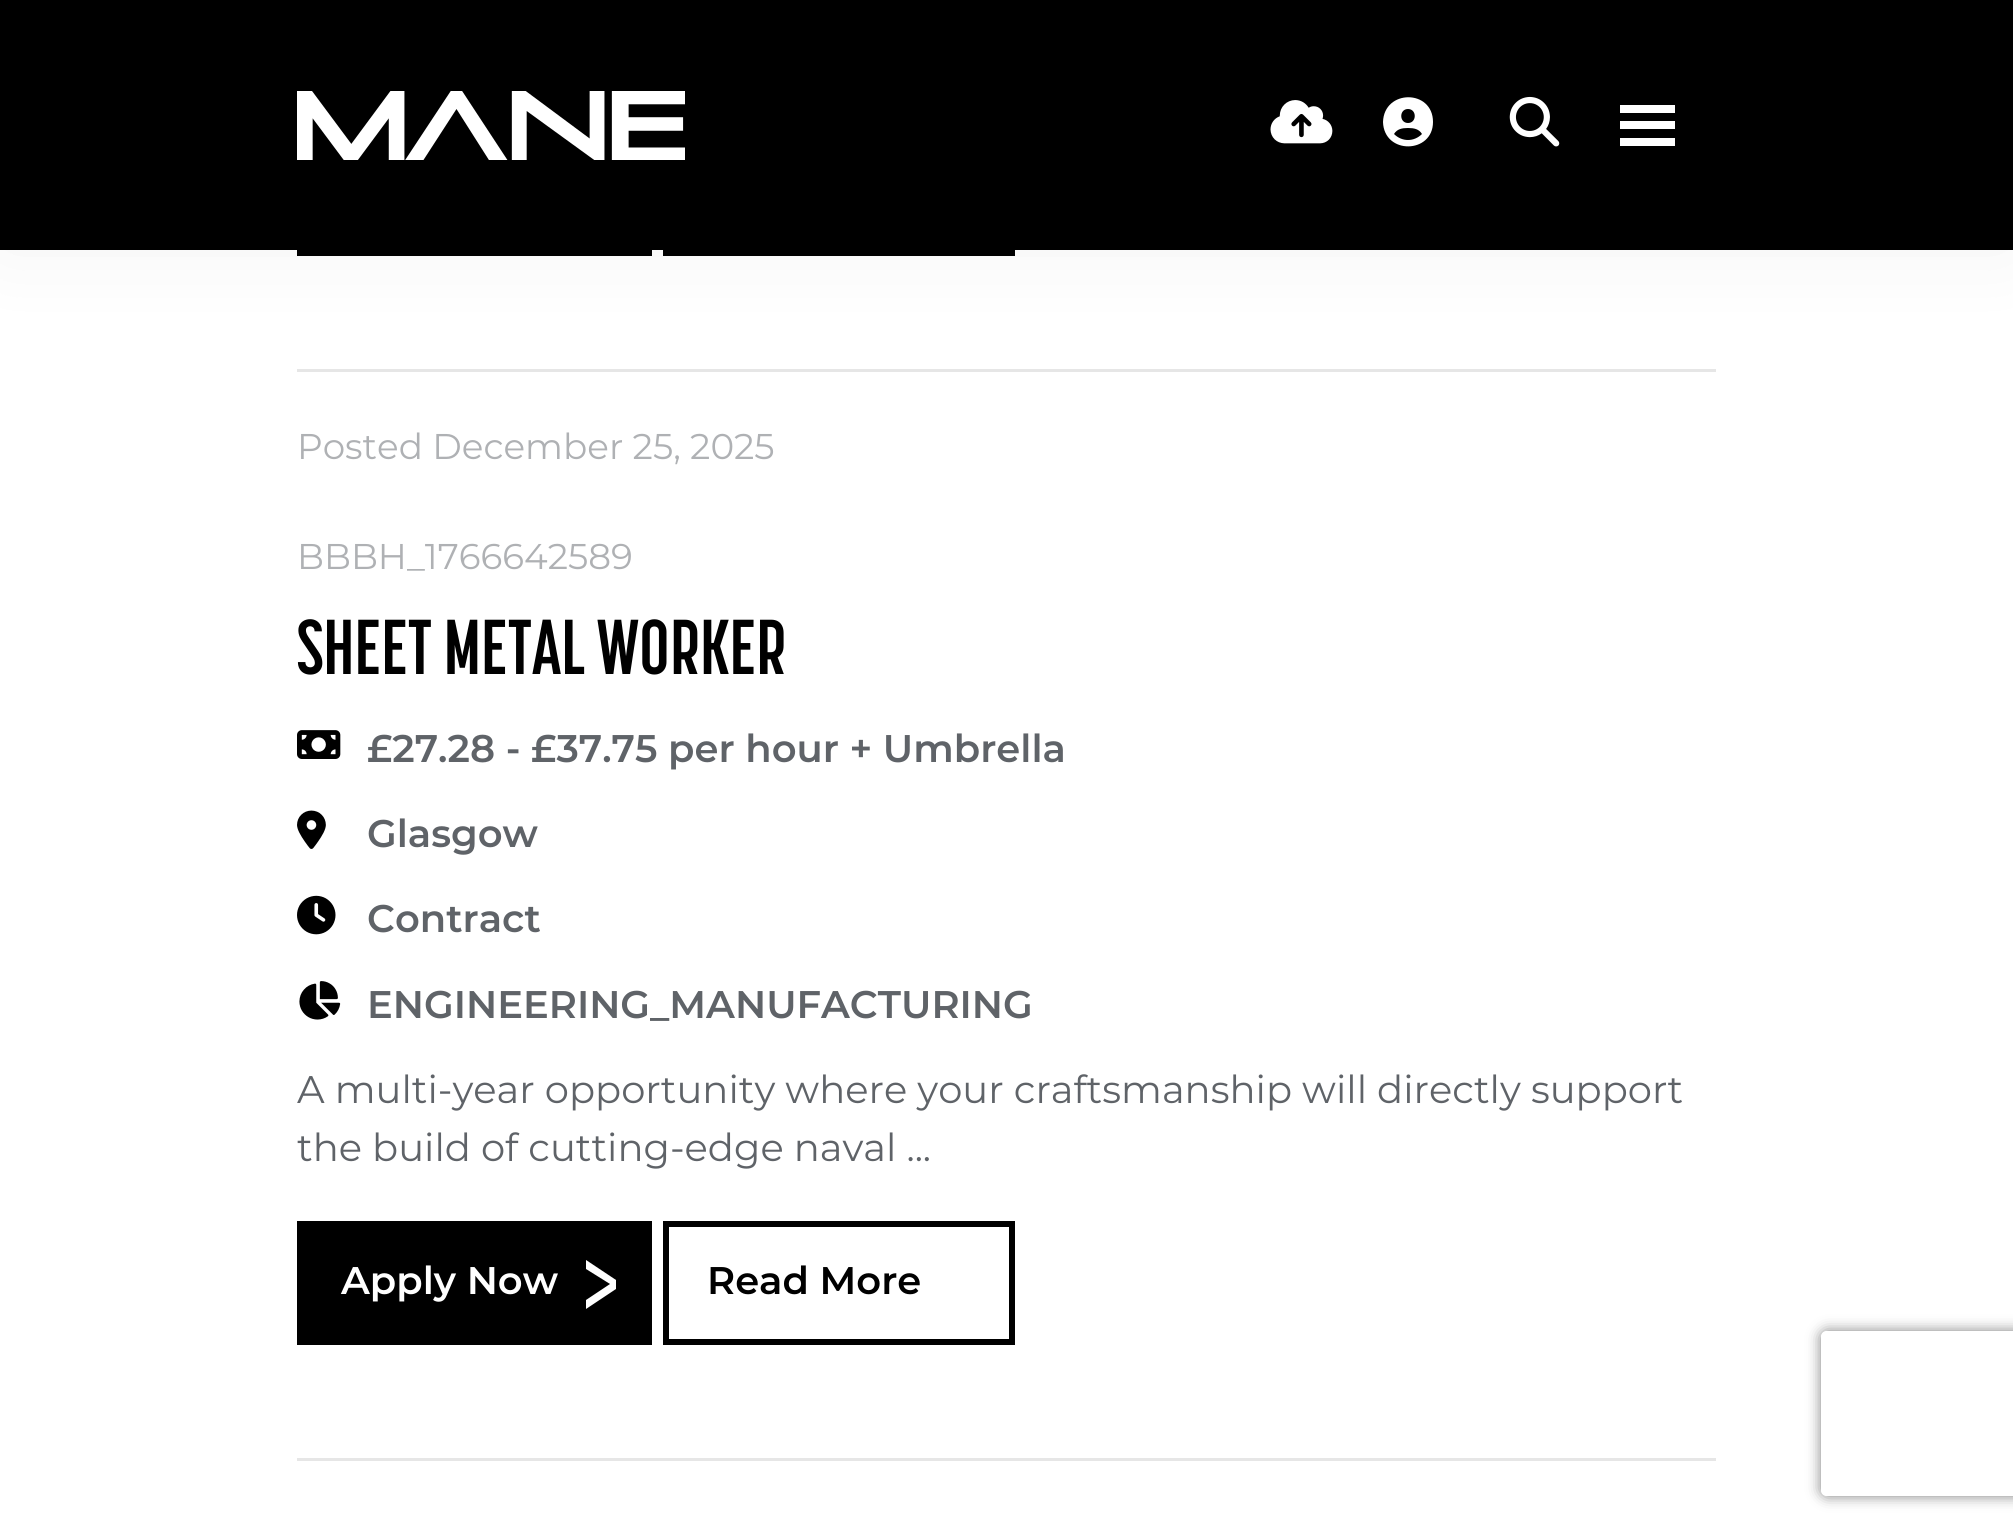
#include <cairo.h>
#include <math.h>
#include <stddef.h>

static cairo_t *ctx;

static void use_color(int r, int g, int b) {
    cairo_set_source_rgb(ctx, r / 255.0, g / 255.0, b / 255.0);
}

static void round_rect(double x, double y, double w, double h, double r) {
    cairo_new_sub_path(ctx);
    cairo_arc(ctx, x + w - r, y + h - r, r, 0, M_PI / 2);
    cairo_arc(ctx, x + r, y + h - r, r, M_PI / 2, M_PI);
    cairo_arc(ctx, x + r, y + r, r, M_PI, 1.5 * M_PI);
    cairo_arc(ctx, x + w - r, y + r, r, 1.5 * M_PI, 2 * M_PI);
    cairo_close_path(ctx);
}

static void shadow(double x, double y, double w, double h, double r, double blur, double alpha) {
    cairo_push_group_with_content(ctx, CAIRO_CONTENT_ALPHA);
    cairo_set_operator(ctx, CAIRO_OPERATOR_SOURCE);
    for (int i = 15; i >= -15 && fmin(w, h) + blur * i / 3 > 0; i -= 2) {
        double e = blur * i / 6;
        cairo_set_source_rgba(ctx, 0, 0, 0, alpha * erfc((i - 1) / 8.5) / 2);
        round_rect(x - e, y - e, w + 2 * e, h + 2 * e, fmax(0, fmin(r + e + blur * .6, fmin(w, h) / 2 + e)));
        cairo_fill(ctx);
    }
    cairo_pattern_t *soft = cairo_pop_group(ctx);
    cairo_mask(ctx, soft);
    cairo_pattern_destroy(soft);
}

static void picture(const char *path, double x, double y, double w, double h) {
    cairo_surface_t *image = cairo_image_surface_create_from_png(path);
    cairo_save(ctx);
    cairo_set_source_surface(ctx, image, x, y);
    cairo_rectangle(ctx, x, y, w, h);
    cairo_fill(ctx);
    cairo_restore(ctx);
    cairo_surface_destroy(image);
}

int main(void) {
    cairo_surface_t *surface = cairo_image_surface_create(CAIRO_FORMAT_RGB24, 2013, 1533);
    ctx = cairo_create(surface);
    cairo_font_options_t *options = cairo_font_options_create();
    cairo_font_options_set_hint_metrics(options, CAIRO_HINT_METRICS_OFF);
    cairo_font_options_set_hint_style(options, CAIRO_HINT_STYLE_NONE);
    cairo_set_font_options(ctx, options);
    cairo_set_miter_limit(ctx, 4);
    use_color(255, 255, 255);
    cairo_paint(ctx);
    use_color(0, 0, 0);
    cairo_rectangle(ctx, 297, 250, 355, 6);
    cairo_fill(ctx);
    cairo_rectangle(ctx, 666, 135, 346, 118);
    cairo_set_line_width(ctx, 6);
    cairo_stroke(ctx);
    use_color(230, 230, 230);
    cairo_rectangle(ctx, 297, 369, 1419, 3);
    cairo_fill(ctx);
    use_color(0, 0, 0);
    shadow(0, 0, 2013, 250, 0, 41, 0.05);
    use_color(0, 0, 0);
    cairo_rectangle(ctx, 0, 0, 2013, 250);
    cairo_fill(ctx);
    picture("img1.png", 297, 91, 388, 69);
    picture("img2.png", 1270, 100, 63, 44);
    use_color(255, 255, 255);
    cairo_new_path(ctx);
    cairo_move_to(ctx, 1422, 134);
    cairo_curve_to(ctx, 1419, 129, 1414, 128, 1408, 128);
    cairo_curve_to(ctx, 1402, 128, 1397, 129, 1394, 134);
    cairo_curve_to(ctx, 1402, 142, 1414, 142, 1422, 134);
    cairo_close_path(ctx);
    cairo_move_to(ctx, 1383, 122);
    cairo_curve_to(ctx, 1384, 89, 1433, 89, 1433, 122);
    cairo_curve_to(ctx, 1433, 154, 1384, 155, 1383, 122);
    cairo_close_path(ctx);
    cairo_move_to(ctx, 1408, 123);
    cairo_curve_to(ctx, 1417, 123, 1417, 109, 1408, 109);
    cairo_curve_to(ctx, 1399, 109, 1399, 123, 1408, 123);
    cairo_close_path(ctx);
    cairo_fill(ctx);
    picture("img3.png", 1509, 96, 51, 51);
    cairo_rectangle(ctx, 1620, 121, 55, 8);
    cairo_fill(ctx);
    cairo_rectangle(ctx, 1620, 105, 55, 8);
    cairo_fill(ctx);
    cairo_rectangle(ctx, 1620, 138, 55, 8);
    cairo_fill(ctx);
    cairo_select_font_face(ctx, "Montserrat", CAIRO_FONT_SLANT_NORMAL, CAIRO_FONT_WEIGHT_NORMAL);
    cairo_set_font_size(ctx, 35.75);
    use_color(175, 177, 180);
    cairo_move_to(ctx, 297, 459);
    cairo_show_text(ctx, "Posted December 25, 2025");
    cairo_move_to(ctx, 297, 569);
    cairo_show_text(ctx, "BBBH_1766642589");
    cairo_select_font_face(ctx, "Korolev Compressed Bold", CAIRO_FONT_SLANT_NORMAL, CAIRO_FONT_WEIGHT_BOLD);
    cairo_set_font_size(ctx, 77);
    use_color(0, 0, 0);
    cairo_move_to(ctx, 297, 674);
    cairo_show_text(ctx, "SHEET METAL WORKER");
    picture("img4.png", 297, 730, 44, 29);
    cairo_select_font_face(ctx, "Montserrat SemiBold", CAIRO_FONT_SLANT_NORMAL, CAIRO_FONT_WEIGHT_NORMAL);
    cairo_set_font_size(ctx, 38.5);
    use_color(95, 99, 104);
    cairo_move_to(ctx, 367, 762);
    cairo_show_text(ctx, "£27.28 - £37.75 per hour + Umbrella");
    picture("img5.png", 297, 810, 29, 39);
    cairo_move_to(ctx, 367, 847);
    cairo_show_text(ctx, "Glasgow");
    picture("img6.png", 297, 895, 39, 40);
    cairo_move_to(ctx, 367, 932);
    cairo_show_text(ctx, "Contract");
    picture("img7.png", 299, 981, 42, 39);
    cairo_move_to(ctx, 367, 1018);
    cairo_show_text(ctx, "ENGINEERING_MANUFACTURING");
    cairo_select_font_face(ctx, "Montserrat", CAIRO_FONT_SLANT_NORMAL, CAIRO_FONT_WEIGHT_NORMAL);
    cairo_move_to(ctx, 297, 1103);
    cairo_show_text(ctx, "A multi-year opportunity where your craftsmanship will directly support");
    cairo_move_to(ctx, 297, 1161);
    cairo_show_text(ctx, "the build of cutting-edge naval ...");
    use_color(0, 0, 0);
    cairo_rectangle(ctx, 297, 1221, 355, 124);
    cairo_fill(ctx);
    cairo_select_font_face(ctx, "Montserrat SemiBold", CAIRO_FONT_SLANT_NORMAL, CAIRO_FONT_WEIGHT_NORMAL);
    use_color(255, 255, 255);
    cairo_move_to(ctx, 341, 1294);
    cairo_show_text(ctx, "Apply Now");
    cairo_save(ctx);
    cairo_rectangle(ctx, 586, 1260, 30, 49);
    cairo_clip(ctx);
    cairo_new_path(ctx);
    cairo_move_to(ctx, 586, 1309);
    cairo_line_to(ctx, 586, 1300);
    cairo_line_to(ctx, 610, 1284);
    cairo_line_to(ctx, 586, 1269);
    cairo_line_to(ctx, 586, 1260);
    cairo_line_to(ctx, 619, 1282);
    cairo_line_to(ctx, 619, 1287);
    cairo_close_path(ctx);
    cairo_fill(ctx);
    cairo_restore(ctx);
    cairo_rectangle(ctx, 666, 1224, 346, 118);
    use_color(0, 0, 0);
    cairo_stroke(ctx);
    cairo_move_to(ctx, 707, 1294);
    cairo_show_text(ctx, "Read More");
    use_color(230, 230, 230);
    cairo_rectangle(ctx, 297, 1458, 1419, 3);
    cairo_fill(ctx);
    cairo_save(ctx);
    cairo_set_fill_rule(ctx, CAIRO_FILL_RULE_EVEN_ODD);
    cairo_new_path(ctx);
    cairo_move_to(ctx, 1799, 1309);
    cairo_line_to(ctx, 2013, 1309);
    cairo_line_to(ctx, 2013, 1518);
    cairo_line_to(ctx, 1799, 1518);
    cairo_close_path(ctx);
    cairo_move_to(ctx, 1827, 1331);
    cairo_line_to(ctx, 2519, 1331);
    cairo_curve_to(ctx, 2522.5, 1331, 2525, 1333.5, 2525, 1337);
    cairo_line_to(ctx, 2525, 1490);
    cairo_curve_to(ctx, 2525, 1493.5, 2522.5, 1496, 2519, 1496);
    cairo_line_to(ctx, 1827, 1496);
    cairo_curve_to(ctx, 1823.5, 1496, 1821, 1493.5, 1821, 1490);
    cairo_line_to(ctx, 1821, 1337);
    cairo_curve_to(ctx, 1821, 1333.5, 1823.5, 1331, 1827, 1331);
    cairo_close_path(ctx);
    cairo_clip(ctx);
    use_color(128, 128, 128);
    shadow(1821, 1331, 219, 165, 6, 7, 1);
    cairo_restore(ctx);
    cairo_surface_write_to_png(surface, "result.png");
    cairo_font_options_destroy(options);
    cairo_destroy(ctx);
    cairo_surface_destroy(surface);
    return 0;
}
